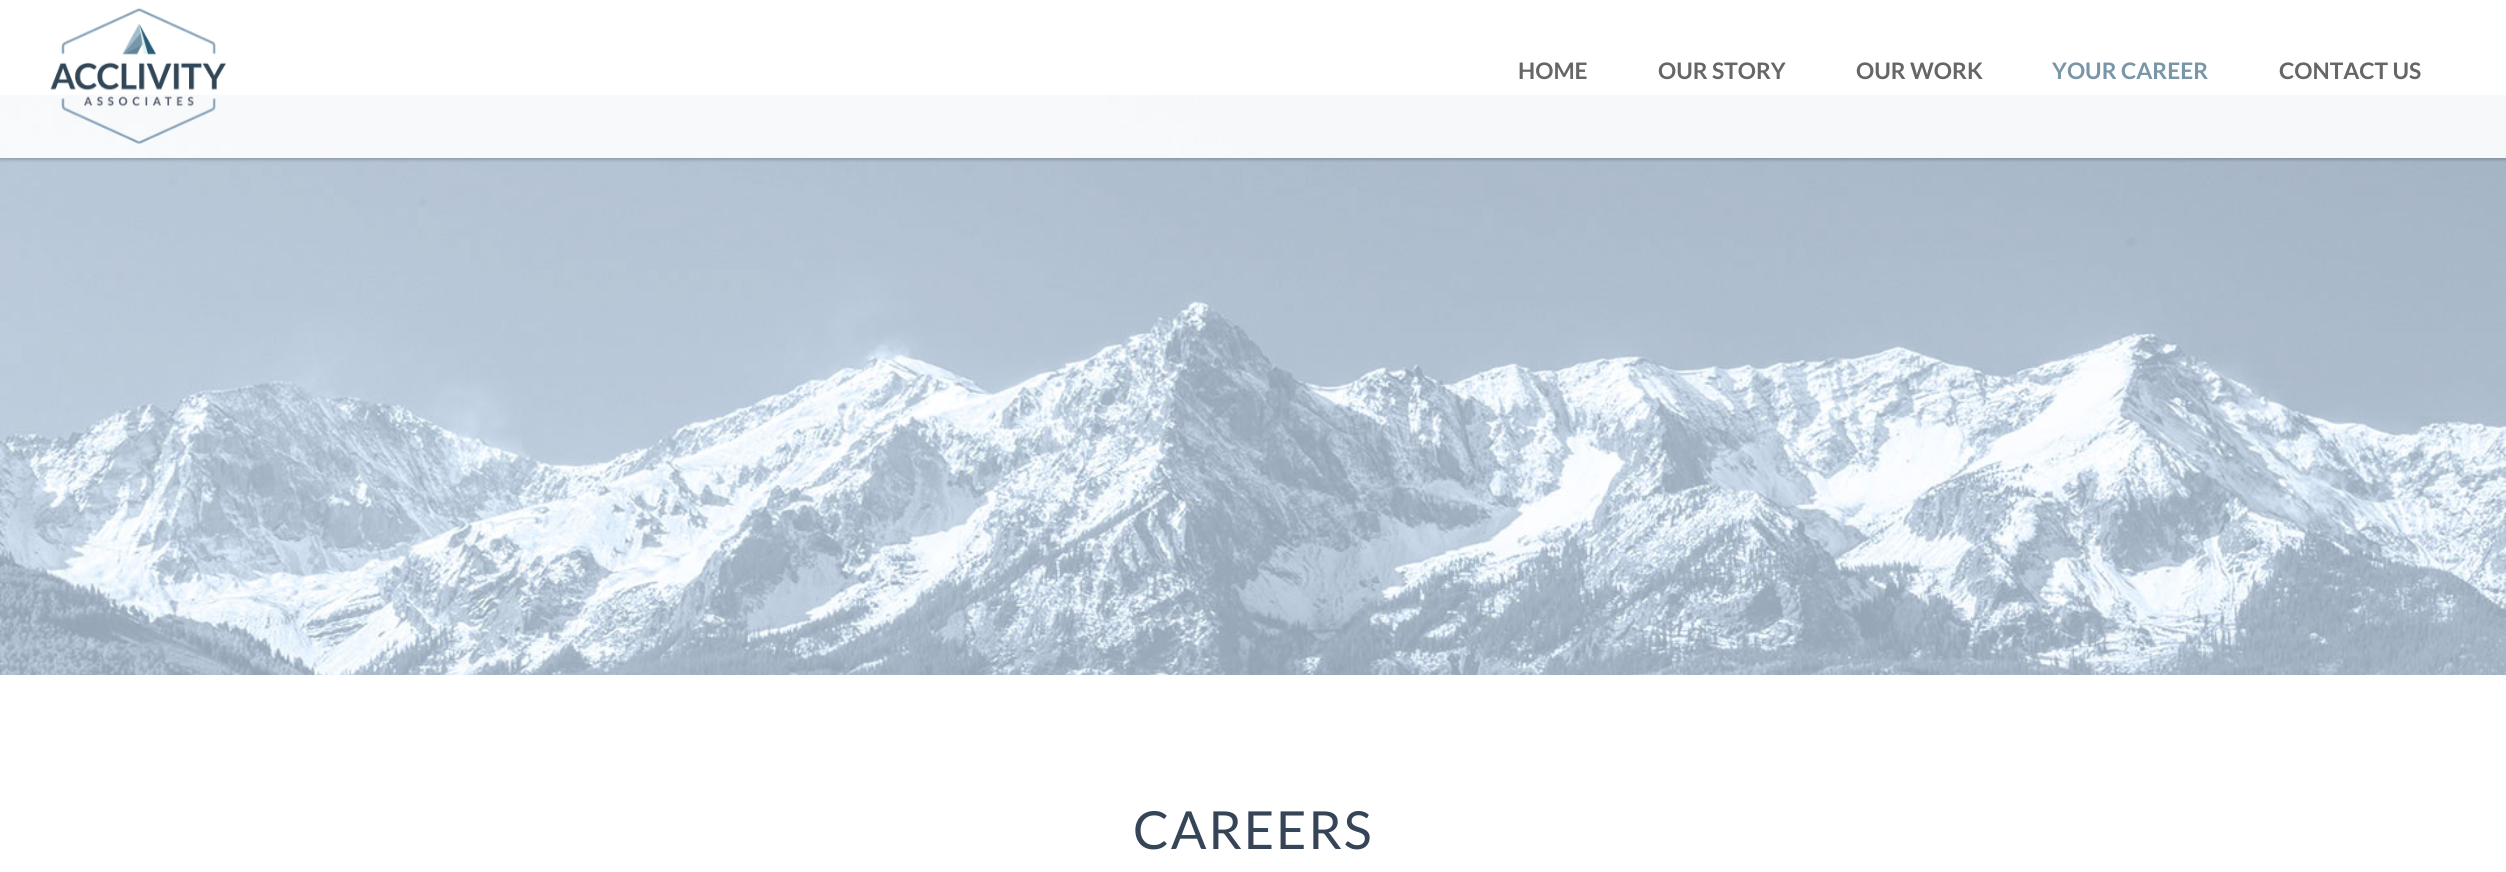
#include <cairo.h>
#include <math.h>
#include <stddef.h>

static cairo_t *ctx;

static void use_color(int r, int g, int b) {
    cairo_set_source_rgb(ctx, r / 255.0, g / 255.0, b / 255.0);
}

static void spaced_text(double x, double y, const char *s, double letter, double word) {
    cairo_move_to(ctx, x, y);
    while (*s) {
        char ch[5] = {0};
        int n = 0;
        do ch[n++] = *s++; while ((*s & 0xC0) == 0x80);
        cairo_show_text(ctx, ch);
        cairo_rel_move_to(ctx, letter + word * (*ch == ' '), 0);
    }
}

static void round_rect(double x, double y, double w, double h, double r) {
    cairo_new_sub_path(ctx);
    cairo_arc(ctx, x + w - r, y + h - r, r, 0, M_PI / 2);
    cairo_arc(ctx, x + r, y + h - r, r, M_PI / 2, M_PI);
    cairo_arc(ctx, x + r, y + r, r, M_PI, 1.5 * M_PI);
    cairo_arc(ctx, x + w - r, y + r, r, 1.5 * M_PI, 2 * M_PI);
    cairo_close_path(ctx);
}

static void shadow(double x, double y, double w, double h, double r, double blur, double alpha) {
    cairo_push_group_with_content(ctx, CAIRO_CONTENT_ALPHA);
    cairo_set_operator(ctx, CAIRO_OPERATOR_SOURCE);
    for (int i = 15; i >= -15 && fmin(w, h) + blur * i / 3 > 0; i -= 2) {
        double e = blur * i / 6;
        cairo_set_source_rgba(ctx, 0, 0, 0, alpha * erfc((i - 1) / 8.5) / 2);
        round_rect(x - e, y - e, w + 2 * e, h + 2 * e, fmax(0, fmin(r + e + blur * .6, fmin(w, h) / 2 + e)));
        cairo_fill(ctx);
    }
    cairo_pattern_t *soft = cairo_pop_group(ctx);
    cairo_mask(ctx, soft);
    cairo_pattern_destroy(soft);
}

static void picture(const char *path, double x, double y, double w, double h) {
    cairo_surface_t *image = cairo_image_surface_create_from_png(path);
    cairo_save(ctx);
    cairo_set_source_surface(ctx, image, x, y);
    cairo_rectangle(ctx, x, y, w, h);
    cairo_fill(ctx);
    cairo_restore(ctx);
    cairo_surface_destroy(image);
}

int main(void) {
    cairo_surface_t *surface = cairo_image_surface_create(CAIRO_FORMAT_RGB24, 2506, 872);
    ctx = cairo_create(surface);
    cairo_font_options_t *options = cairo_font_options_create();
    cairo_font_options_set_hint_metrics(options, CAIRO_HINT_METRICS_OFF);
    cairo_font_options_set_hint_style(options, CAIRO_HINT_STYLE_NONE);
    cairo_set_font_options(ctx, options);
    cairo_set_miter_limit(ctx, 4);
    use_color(255, 255, 255);
    cairo_paint(ctx);
    picture("img2.png", 0, 95, 2506, 580);
    cairo_save(ctx);
    cairo_set_fill_rule(ctx, CAIRO_FILL_RULE_EVEN_ODD);
    cairo_new_path(ctx);
    cairo_move_to(ctx, 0, 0);
    cairo_line_to(ctx, 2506, 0);
    cairo_line_to(ctx, 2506, 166);
    cairo_line_to(ctx, 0, 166);
    cairo_close_path(ctx);
    cairo_move_to(ctx, 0, 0);
    cairo_line_to(ctx, 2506, 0);
    cairo_line_to(ctx, 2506, 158);
    cairo_line_to(ctx, 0, 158);
    cairo_close_path(ctx);
    cairo_clip(ctx);
    use_color(0, 0, 0);
    shadow(0, 2, 2506, 157, 0, 2, 0.3);
    cairo_restore(ctx);
    cairo_set_source_rgba(ctx, 1, 1, 1, 0.9);
    cairo_rectangle(ctx, 0, 95, 2506, 63);
    cairo_fill(ctx);
    picture("img1.png", 50, 8, 176, 136);
    cairo_select_font_face(ctx, "Lato", CAIRO_FONT_SLANT_NORMAL, CAIRO_FONT_WEIGHT_BOLD);
    cairo_set_font_size(ctx, 22.75);
    use_color(102, 102, 102);
    cairo_move_to(ctx, 1518, 79);
    cairo_show_text(ctx, "HOME");
    cairo_move_to(ctx, 1658, 79);
    cairo_show_text(ctx, "OUR STORY");
    cairo_move_to(ctx, 1856, 79);
    cairo_show_text(ctx, "OUR WORK");
    use_color(121, 149, 168);
    cairo_move_to(ctx, 2052, 79);
    cairo_show_text(ctx, "YOUR CAREER");
    use_color(102, 102, 102);
    cairo_move_to(ctx, 2279, 79);
    cairo_show_text(ctx, "CONTACT US");
    cairo_select_font_face(ctx, "Lato", CAIRO_FONT_SLANT_NORMAL, CAIRO_FONT_WEIGHT_NORMAL);
    cairo_set_font_size(ctx, 52.5);
    use_color(53, 69, 87);
    spaced_text(1133, 849, "CAREERS", 1.75, 0);
    cairo_surface_write_to_png(surface, "result.png");
    cairo_font_options_destroy(options);
    cairo_destroy(ctx);
    cairo_surface_destroy(surface);
    return 0;
}
